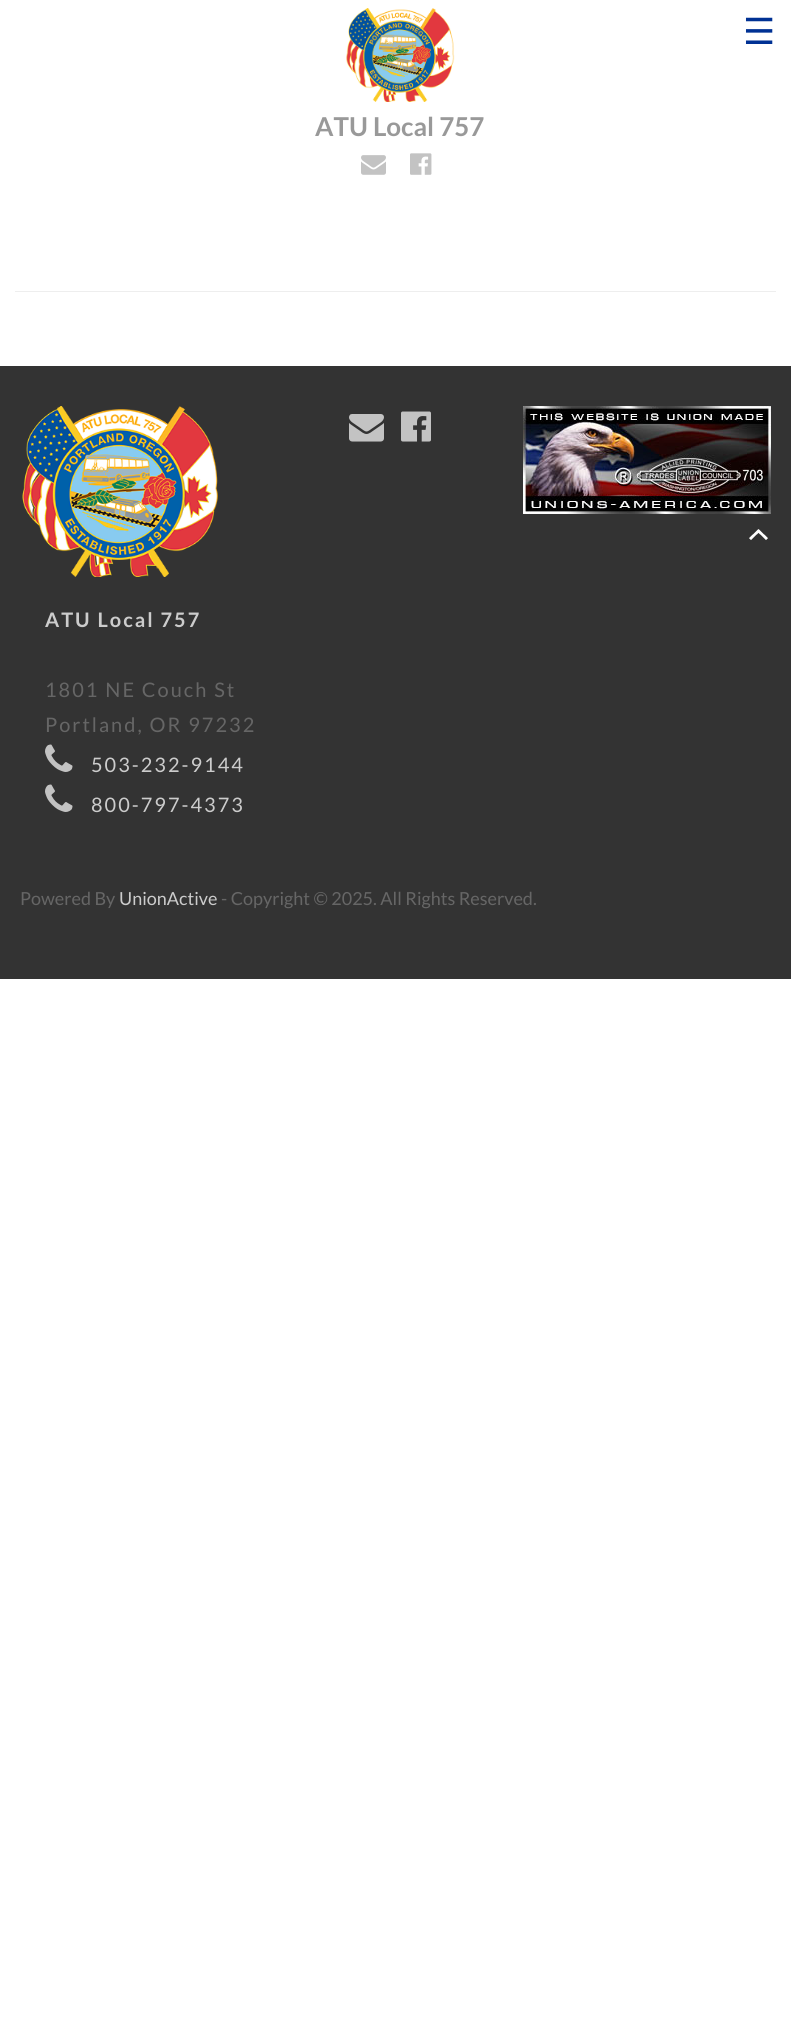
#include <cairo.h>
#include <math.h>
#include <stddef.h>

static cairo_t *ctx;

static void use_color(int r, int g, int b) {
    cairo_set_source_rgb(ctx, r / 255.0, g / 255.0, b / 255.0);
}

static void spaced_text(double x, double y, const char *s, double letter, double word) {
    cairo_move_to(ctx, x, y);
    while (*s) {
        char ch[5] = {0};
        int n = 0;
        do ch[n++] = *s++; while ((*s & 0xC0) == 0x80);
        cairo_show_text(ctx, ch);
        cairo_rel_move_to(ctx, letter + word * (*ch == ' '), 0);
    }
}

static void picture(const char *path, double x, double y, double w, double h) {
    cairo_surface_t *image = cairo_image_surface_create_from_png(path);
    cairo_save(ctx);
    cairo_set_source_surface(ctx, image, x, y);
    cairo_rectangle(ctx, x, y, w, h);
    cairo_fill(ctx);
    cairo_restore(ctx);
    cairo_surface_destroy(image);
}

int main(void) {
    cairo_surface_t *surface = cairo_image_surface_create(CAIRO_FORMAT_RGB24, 791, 2030);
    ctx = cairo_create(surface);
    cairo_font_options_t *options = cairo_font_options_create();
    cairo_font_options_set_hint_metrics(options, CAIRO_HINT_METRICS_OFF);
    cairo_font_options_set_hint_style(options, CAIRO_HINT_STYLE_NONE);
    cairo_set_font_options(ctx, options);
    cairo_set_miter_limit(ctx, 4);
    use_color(255, 255, 255);
    cairo_paint(ctx);
    cairo_select_font_face(ctx, "DejaVu Sans", CAIRO_FONT_SLANT_NORMAL, CAIRO_FONT_WEIGHT_NORMAL);
    cairo_set_font_size(ctx, 36);
    use_color(0, 49, 148);
    cairo_move_to(ctx, 743, 44);
    cairo_show_text(ctx, "☰");
    picture("img1.png", 346, 8, 109, 94);
    cairo_select_font_face(ctx, "Lato", CAIRO_FONT_SLANT_NORMAL, CAIRO_FONT_WEIGHT_BOLD);
    cairo_set_font_size(ctx, 26);
    use_color(153, 153, 153);
    cairo_move_to(ctx, 315, 136);
    cairo_show_text(ctx, "ATU Local 757");
    picture("img2.png", 361, 155, 25, 20);
    picture("img3.png", 410, 153, 22, 22);
    use_color(238, 238, 238);
    cairo_rectangle(ctx, 15, 291, 761, 1);
    cairo_fill(ctx);
    use_color(51, 51, 51);
    cairo_rectangle(ctx, 0, 366, 791, 613);
    cairo_fill(ctx);
    picture("img4.png", 349, 414, 35, 28);
    picture("img5.png", 401, 411, 30, 31);
    picture("img6.png", 523, 406, 248, 108);
    picture("img7.png", 749, 529, 19, 11);
    picture("img8.png", 22, 406, 196, 171);
    cairo_set_font_size(ctx, 20);
    use_color(204, 204, 204);
    spaced_text(45, 627, "ATU Local 757", 2, 0);
    cairo_select_font_face(ctx, "Lato", CAIRO_FONT_SLANT_NORMAL, CAIRO_FONT_WEIGHT_NORMAL);
    use_color(102, 102, 102);
    spaced_text(45, 697, "1801 NE Couch St", 2, 0);
    spaced_text(45, 732, "Portland, OR 97232", 2, 0);
    picture("img9.png", 45, 744, 28, 28);
    use_color(204, 204, 204);
    spaced_text(91, 772, "503-232-9144", 2, 0);
    picture("img9.png", 45, 784, 28, 28);
    spaced_text(91, 812, "800-797-4373", 2, 0);
    cairo_set_font_size(ctx, 18);
    use_color(102, 102, 102);
    cairo_move_to(ctx, 20, 905);
    cairo_show_text(ctx, "Powered By");
    use_color(204, 204, 204);
    cairo_move_to(ctx, 119, 905);
    cairo_show_text(ctx, "UnionActive");
    use_color(102, 102, 102);
    cairo_move_to(ctx, 221, 905);
    cairo_show_text(ctx, "- Copyright © 2025. All Rights Reserved.");
    cairo_surface_write_to_png(surface, "result.png");
    cairo_font_options_destroy(options);
    cairo_destroy(ctx);
    cairo_surface_destroy(surface);
    return 0;
}
